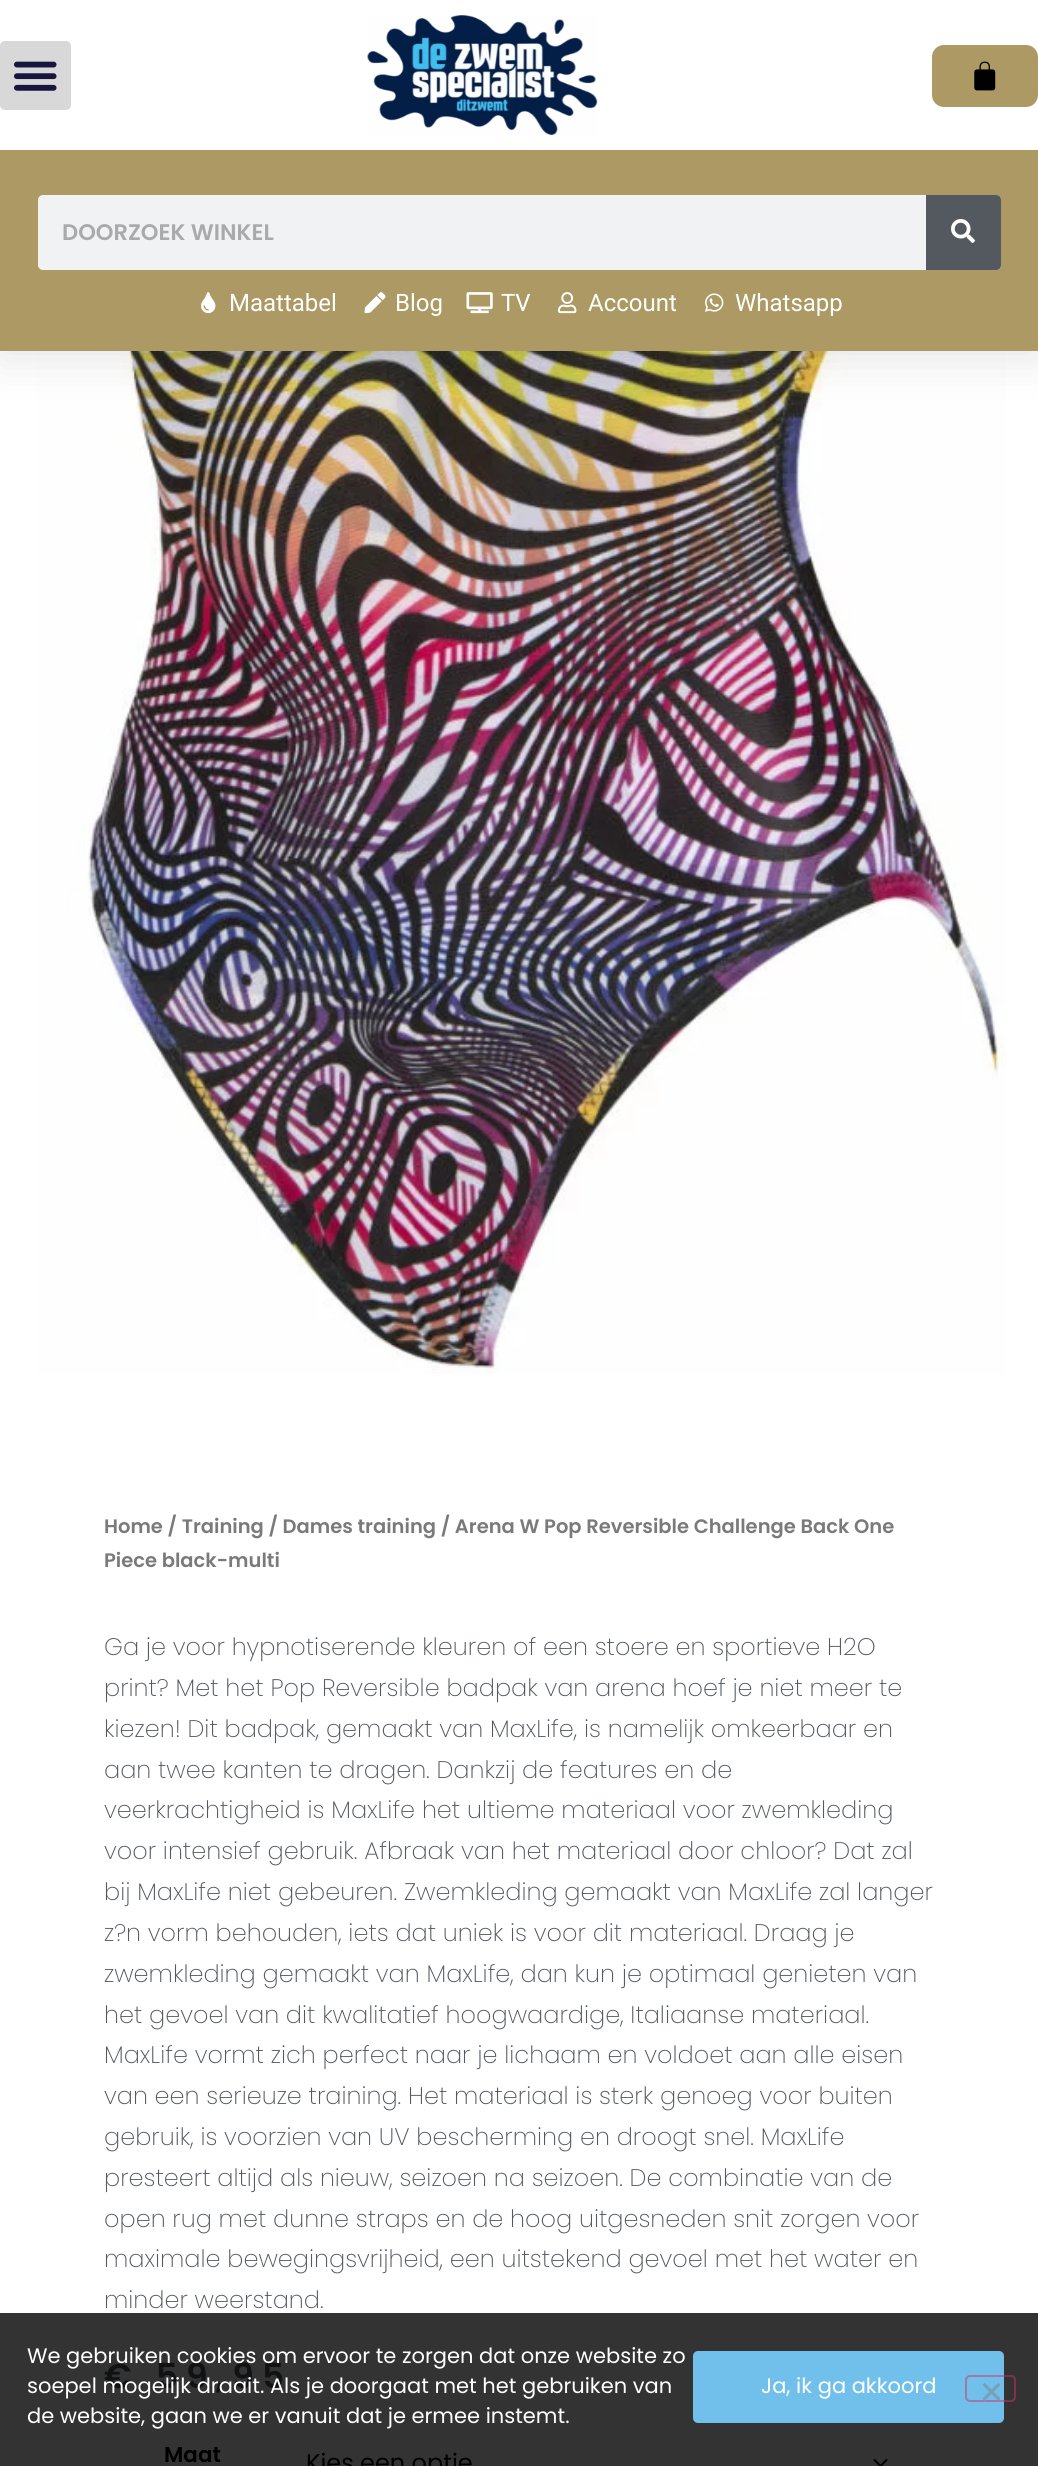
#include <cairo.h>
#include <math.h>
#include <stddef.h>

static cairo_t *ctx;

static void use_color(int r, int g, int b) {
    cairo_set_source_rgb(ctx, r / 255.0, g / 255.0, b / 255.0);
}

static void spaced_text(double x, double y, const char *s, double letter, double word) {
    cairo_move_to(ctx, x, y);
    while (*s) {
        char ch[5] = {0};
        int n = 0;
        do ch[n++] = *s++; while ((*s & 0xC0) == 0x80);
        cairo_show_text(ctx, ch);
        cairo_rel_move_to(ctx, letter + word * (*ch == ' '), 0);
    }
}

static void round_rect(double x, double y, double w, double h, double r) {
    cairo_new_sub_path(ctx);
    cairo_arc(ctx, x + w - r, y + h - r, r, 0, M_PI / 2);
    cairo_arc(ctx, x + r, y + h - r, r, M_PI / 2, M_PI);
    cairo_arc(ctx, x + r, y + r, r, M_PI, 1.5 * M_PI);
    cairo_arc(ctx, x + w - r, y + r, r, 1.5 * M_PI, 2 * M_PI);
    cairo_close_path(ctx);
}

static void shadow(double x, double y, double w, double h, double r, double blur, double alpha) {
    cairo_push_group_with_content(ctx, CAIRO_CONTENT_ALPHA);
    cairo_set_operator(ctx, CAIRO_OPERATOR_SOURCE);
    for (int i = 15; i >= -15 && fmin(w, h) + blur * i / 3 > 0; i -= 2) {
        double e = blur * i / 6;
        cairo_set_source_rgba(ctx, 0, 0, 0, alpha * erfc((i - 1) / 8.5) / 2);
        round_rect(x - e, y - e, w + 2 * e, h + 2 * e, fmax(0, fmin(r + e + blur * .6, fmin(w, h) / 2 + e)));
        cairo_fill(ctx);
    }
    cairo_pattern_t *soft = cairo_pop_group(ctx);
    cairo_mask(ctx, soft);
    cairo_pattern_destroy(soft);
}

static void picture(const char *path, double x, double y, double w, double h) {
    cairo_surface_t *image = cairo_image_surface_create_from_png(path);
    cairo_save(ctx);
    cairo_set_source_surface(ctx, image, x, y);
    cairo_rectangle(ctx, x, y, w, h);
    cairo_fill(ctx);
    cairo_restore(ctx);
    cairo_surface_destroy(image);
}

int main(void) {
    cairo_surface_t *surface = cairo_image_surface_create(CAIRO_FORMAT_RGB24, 1038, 2466);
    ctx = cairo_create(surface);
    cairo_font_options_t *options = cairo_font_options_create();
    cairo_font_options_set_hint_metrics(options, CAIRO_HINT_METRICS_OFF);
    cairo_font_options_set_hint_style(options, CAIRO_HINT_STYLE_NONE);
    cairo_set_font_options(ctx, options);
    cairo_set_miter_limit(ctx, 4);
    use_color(255, 255, 255);
    cairo_paint(ctx);
    use_color(51, 51, 51);
    cairo_rectangle(ctx, 0, 2313, 1038, 153);
    cairo_fill(ctx);
    picture("img10.png", 37, 351, 969, 1023);
    use_color(0, 0, 0);
    shadow(0, 8, 1038, 351, 0, 22.5, 0.1);
    use_color(255, 255, 255);
    cairo_rectangle(ctx, 0, 0, 1038, 150);
    cairo_fill(ctx);
    use_color(216, 216, 216);
    round_rect(0, 41, 71, 69, 5);
    cairo_fill(ctx);
    picture("img1.png", 14, 61, 43, 30);
    picture("img2.png", 367, 15, 231, 120);
    use_color(172, 153, 99);
    round_rect(932, 45, 106, 62, 12);
    cairo_fill(ctx);
    picture("img3.png", 974, 61, 22, 30);
    cairo_rectangle(ctx, 0, 150, 1038, 201);
    cairo_fill(ctx);
    use_color(241, 242, 243);
    round_rect(38, 195, 963, 75, 5);
    cairo_fill(ctx);
    cairo_select_font_face(ctx, "Poppins SemiBold", CAIRO_FONT_SLANT_NORMAL, CAIRO_FONT_WEIGHT_NORMAL);
    cairo_set_font_size(ctx, 22.5);
    use_color(170, 170, 170);
    cairo_move_to(ctx, 62, 240);
    cairo_show_text(ctx, "DOORZOEK WINKEL");
    use_color(84, 89, 95);
    cairo_new_path(ctx);
    cairo_move_to(ctx, 926, 195);
    cairo_line_to(ctx, 996, 195);
    cairo_curve_to(ctx, 999, 195, 1001, 197, 1001, 200);
    cairo_line_to(ctx, 1001, 265);
    cairo_curve_to(ctx, 1001, 268, 999, 270, 996, 270);
    cairo_line_to(ctx, 926, 270);
    cairo_close_path(ctx);
    cairo_fill(ctx);
    picture("img4.png", 951, 219, 24, 24);
    picture("img5.png", 201, 292, 15, 22);
    cairo_select_font_face(ctx, "Roboto", CAIRO_FONT_SLANT_NORMAL, CAIRO_FONT_WEIGHT_NORMAL);
    cairo_set_font_size(ctx, 24);
    use_color(255, 255, 255);
    cairo_move_to(ctx, 229, 311);
    cairo_show_text(ctx, "Maattabel");
    picture("img6.png", 364, 292, 22, 22);
    cairo_move_to(ctx, 395, 311);
    cairo_show_text(ctx, "Blog");
    picture("img7.png", 466, 292, 27, 22);
    cairo_move_to(ctx, 501, 311);
    cairo_show_text(ctx, "TV");
    picture("img8.png", 558, 292, 19, 22);
    cairo_move_to(ctx, 588, 311);
    cairo_show_text(ctx, "Account");
    picture("img9.png", 705, 293, 19, 19);
    cairo_move_to(ctx, 735, 311);
    cairo_show_text(ctx, "Whatsapp");
    cairo_select_font_face(ctx, "Poppins SemiBold", CAIRO_FONT_SLANT_NORMAL, CAIRO_FONT_WEIGHT_NORMAL);
    cairo_set_font_size(ctx, 19.5);
    use_color(122, 122, 122);
    cairo_move_to(ctx, 104, 1533);
    cairo_show_text(ctx, "Home / Training / Dames training / Arena W Pop Reversible Challenge Back One");
    cairo_move_to(ctx, 104, 1567);
    cairo_show_text(ctx, "Piece black-multi");
    cairo_select_font_face(ctx, "Poppins ExtraLight", CAIRO_FONT_SLANT_NORMAL, CAIRO_FONT_WEIGHT_NORMAL);
    cairo_set_font_size(ctx, 24);
    use_color(84, 89, 95);
    cairo_move_to(ctx, 104, 1655);
    cairo_show_text(ctx, "Ga je voor hypnotiserende kleuren of een stoere en sportieve H2O");
    cairo_move_to(ctx, 104, 1696);
    cairo_show_text(ctx, "print? Met het Pop Reversible badpak van arena hoef je niet meer te");
    cairo_move_to(ctx, 104, 1737);
    cairo_show_text(ctx, "kiezen! Dit badpak, gemaakt van MaxLife, is namelijk omkeerbaar en");
    cairo_move_to(ctx, 104, 1778);
    cairo_show_text(ctx, "aan twee kanten te dragen. Dankzij de features en de");
    cairo_move_to(ctx, 104, 1818);
    cairo_show_text(ctx, "veerkrachtigheid is MaxLife het ultieme materiaal voor zwemkleding");
    cairo_move_to(ctx, 104, 1859);
    cairo_show_text(ctx, "voor intensief gebruik. Afbraak van het materiaal door chloor? Dat zal");
    cairo_move_to(ctx, 104, 1900);
    cairo_show_text(ctx, "bij MaxLife niet gebeuren. Zwemkleding gemaakt van MaxLife zal langer");
    cairo_move_to(ctx, 104, 1941);
    cairo_show_text(ctx, "z?n vorm behouden, iets dat uniek is voor dit materiaal. Draag je");
    cairo_move_to(ctx, 104, 1982);
    cairo_show_text(ctx, "zwemkleding gemaakt van MaxLife, dan kun je optimaal genieten van");
    cairo_move_to(ctx, 104, 2023);
    cairo_show_text(ctx, "het gevoel van dit kwalitatief hoogwaardige, Italiaanse materiaal.");
    cairo_move_to(ctx, 104, 2063);
    cairo_show_text(ctx, "MaxLife vormt zich perfect naar je lichaam en voldoet aan alle eisen");
    cairo_move_to(ctx, 104, 2104);
    cairo_show_text(ctx, "van een serieuze training. Het materiaal is sterk genoeg voor buiten");
    cairo_move_to(ctx, 104, 2145);
    cairo_show_text(ctx, "gebruik, is voorzien van UV bescherming en droogt snel. MaxLife");
    cairo_move_to(ctx, 104, 2186);
    cairo_show_text(ctx, "presteert altijd als nieuw, seizoen na seizoen. De combinatie van de");
    cairo_move_to(ctx, 104, 2227);
    cairo_show_text(ctx, "open rug met dunne straps en de hoog uitgesneden snit zorgen voor");
    cairo_move_to(ctx, 104, 2267);
    cairo_show_text(ctx, "maximale bewegingsvrijheid, een uitstekend gevoel met het water en");
    cairo_move_to(ctx, 104, 2308);
    cairo_show_text(ctx, "minder weerstand.");
    cairo_select_font_face(ctx, "Poppins SemiBold", CAIRO_FONT_SLANT_NORMAL, CAIRO_FONT_WEIGHT_NORMAL);
    cairo_set_font_size(ctx, 34.5);
    use_color(17, 18, 19);
    spaced_text(104, 2388, "€ 59,95", 8, 0);
    cairo_set_font_size(ctx, 21.5);
    use_color(0, 0, 0);
    cairo_move_to(ctx, 164, 2462);
    cairo_show_text(ctx, "Maat");
    cairo_new_path(ctx);
    cairo_move_to(ctx, 874.5, 2460);
    cairo_line_to(ctx, 880.5, 2466);
    cairo_line_to(ctx, 886.5, 2460);
    cairo_set_line_cap(ctx, CAIRO_LINE_CAP_ROUND);
    cairo_set_line_join(ctx, CAIRO_LINE_JOIN_ROUND);
    cairo_stroke(ctx);
    cairo_select_font_face(ctx, "Poppins", CAIRO_FONT_SLANT_NORMAL, CAIRO_FONT_WEIGHT_NORMAL);
    cairo_set_font_size(ctx, 24);
    cairo_move_to(ctx, 306, 2471);
    cairo_show_text(ctx, "Kies een optie");
    cairo_set_font_size(ctx, 21);
    use_color(255, 255, 255);
    cairo_move_to(ctx, 27, 2363);
    cairo_show_text(ctx, "We gebruiken cookies om ervoor te zorgen dat onze website zo");
    cairo_move_to(ctx, 27, 2393);
    cairo_show_text(ctx, "soepel mogelijk draait. Als je doorgaat met het gebruiken van");
    cairo_move_to(ctx, 27, 2423);
    cairo_show_text(ctx, "de website, gaan we er vanuit dat je ermee instemt.");
    use_color(113, 192, 236);
    round_rect(693, 2351, 311, 72, 5);
    cairo_fill(ctx);
    use_color(255, 255, 255);
    cairo_move_to(ctx, 761, 2393);
    cairo_show_text(ctx, "Ja, ik ga akkoord");
    round_rect(966, 2376, 49, 25, 4);
    cairo_set_source_rgba(ctx, 0.8, 0.2, 0.4, 0.5);
    cairo_set_line_cap(ctx, CAIRO_LINE_CAP_BUTT);
    cairo_set_line_join(ctx, CAIRO_LINE_JOIN_MITER);
    cairo_stroke(ctx);
    use_color(121, 160, 182);
    cairo_new_path(ctx);
    cairo_move_to(ctx, 998.5, 2382.5);
    cairo_line_to(ctx, 1000.5, 2385);
    cairo_line_to(ctx, 984.5, 2401);
    cairo_line_to(ctx, 982.5, 2398.5);
    cairo_close_path(ctx);
    cairo_fill(ctx);
    cairo_new_path(ctx);
    cairo_move_to(ctx, 982.5, 2385);
    cairo_line_to(ctx, 984.5, 2382.5);
    cairo_line_to(ctx, 1000.5, 2398.5);
    cairo_line_to(ctx, 998.5, 2401);
    cairo_close_path(ctx);
    cairo_fill(ctx);
    cairo_surface_write_to_png(surface, "result.png");
    cairo_font_options_destroy(options);
    cairo_destroy(ctx);
    cairo_surface_destroy(surface);
    return 0;
}
